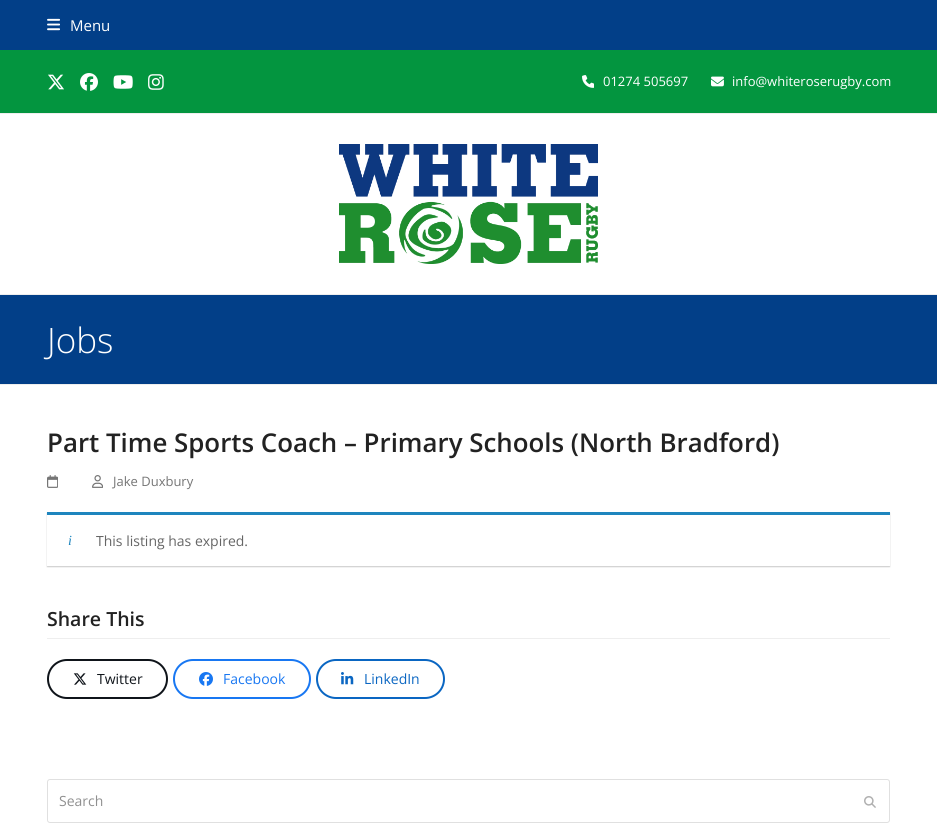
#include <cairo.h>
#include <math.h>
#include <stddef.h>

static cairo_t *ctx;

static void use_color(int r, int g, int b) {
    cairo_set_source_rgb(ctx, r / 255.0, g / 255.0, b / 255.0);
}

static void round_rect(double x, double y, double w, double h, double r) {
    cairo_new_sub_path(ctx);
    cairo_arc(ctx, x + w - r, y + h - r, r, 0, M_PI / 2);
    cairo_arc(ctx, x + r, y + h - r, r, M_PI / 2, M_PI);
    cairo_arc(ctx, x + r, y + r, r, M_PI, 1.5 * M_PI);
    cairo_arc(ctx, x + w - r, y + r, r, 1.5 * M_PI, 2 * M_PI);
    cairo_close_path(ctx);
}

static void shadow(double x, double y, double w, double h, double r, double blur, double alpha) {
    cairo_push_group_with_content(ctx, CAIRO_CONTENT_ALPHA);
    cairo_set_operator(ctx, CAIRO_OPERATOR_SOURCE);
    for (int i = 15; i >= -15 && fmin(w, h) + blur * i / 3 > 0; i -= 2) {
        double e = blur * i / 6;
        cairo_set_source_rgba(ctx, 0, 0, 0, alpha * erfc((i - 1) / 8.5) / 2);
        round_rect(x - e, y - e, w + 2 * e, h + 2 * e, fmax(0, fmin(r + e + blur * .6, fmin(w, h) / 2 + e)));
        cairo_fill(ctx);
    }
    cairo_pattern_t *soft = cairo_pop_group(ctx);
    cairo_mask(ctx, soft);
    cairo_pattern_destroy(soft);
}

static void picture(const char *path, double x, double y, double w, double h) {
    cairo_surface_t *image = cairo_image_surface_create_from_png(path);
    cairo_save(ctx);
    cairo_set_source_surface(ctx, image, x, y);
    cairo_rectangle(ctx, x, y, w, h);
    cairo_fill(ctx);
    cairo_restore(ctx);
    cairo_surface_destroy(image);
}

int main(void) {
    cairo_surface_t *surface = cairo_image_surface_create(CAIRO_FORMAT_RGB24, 937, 827);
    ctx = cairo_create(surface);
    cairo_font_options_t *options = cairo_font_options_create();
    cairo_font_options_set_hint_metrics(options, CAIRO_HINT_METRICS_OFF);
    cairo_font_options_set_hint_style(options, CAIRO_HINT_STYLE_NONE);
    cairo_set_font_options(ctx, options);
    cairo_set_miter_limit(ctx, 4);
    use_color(255, 255, 255);
    cairo_paint(ctx);
    use_color(2, 63, 136);
    cairo_rectangle(ctx, 0, 0, 937, 50);
    cairo_fill(ctx);
    picture("img1.png", 47, 18, 13, 13);
    cairo_select_font_face(ctx, "Open Sans", CAIRO_FONT_SLANT_NORMAL, CAIRO_FONT_WEIGHT_NORMAL);
    cairo_set_font_size(ctx, 15);
    use_color(255, 255, 255);
    cairo_move_to(ctx, 70, 31);
    cairo_show_text(ctx, "Menu");
    use_color(3, 149, 63);
    cairo_rectangle(ctx, 0, 50, 937, 63);
    cairo_fill(ctx);
    use_color(238, 238, 238);
    cairo_rectangle(ctx, 0, 113, 937, 1);
    cairo_fill(ctx);
    picture("img2.png", 48, 74, 16, 16);
    picture("img3.png", 80, 73, 18, 18);
    picture("img4.png", 113, 75, 20, 14);
    picture("img5.png", 148, 74, 16, 16);
    picture("img6.png", 582, 75, 12, 13);
    cairo_set_font_size(ctx, 13);
    use_color(255, 255, 255);
    cairo_move_to(ctx, 603, 86);
    cairo_show_text(ctx, "01274 505697");
    picture("img7.png", 711, 76, 13, 11);
    cairo_move_to(ctx, 732, 86);
    cairo_show_text(ctx, "info@whiteroserugby.com");
    picture("img8.png", 339, 144, 259, 120);
    use_color(2, 63, 136);
    cairo_rectangle(ctx, 0, 295, 937, 89);
    cairo_fill(ctx);
    use_color(238, 238, 238);
    cairo_rectangle(ctx, 0, 294, 937, 1);
    cairo_fill(ctx);
    cairo_rectangle(ctx, 0, 384, 937, 1);
    cairo_fill(ctx);
    cairo_select_font_face(ctx, "Open Sans Light", CAIRO_FONT_SLANT_NORMAL, CAIRO_FONT_WEIGHT_NORMAL);
    cairo_set_font_size(ctx, 35);
    use_color(255, 255, 255);
    cairo_move_to(ctx, 47, 353);
    cairo_show_text(ctx, "Jobs");
    cairo_select_font_face(ctx, "Open Sans SemiBold", CAIRO_FONT_SLANT_NORMAL, CAIRO_FONT_WEIGHT_NORMAL);
    cairo_set_font_size(ctx, 25.85);
    use_color(34, 34, 34);
    cairo_move_to(ctx, 47, 452);
    cairo_show_text(ctx, "Part Time Sports Coach – Primary Schools (North Bradford)");
    picture("img9.png", 47, 475, 11, 13);
    picture("img10.png", 92, 475, 11, 13);
    cairo_select_font_face(ctx, "Open Sans", CAIRO_FONT_SLANT_NORMAL, CAIRO_FONT_WEIGHT_NORMAL);
    cairo_set_font_size(ctx, 13);
    use_color(117, 117, 117);
    cairo_move_to(ctx, 113, 486);
    cairo_show_text(ctx, "Jake Duxbury");
    cairo_save(ctx);
    cairo_set_fill_rule(ctx, CAIRO_FILL_RULE_EVEN_ODD);
    cairo_new_path(ctx);
    cairo_move_to(ctx, 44, 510);
    cairo_line_to(ctx, 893, 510);
    cairo_line_to(ctx, 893, 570);
    cairo_line_to(ctx, 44, 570);
    cairo_close_path(ctx);
    cairo_move_to(ctx, 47, 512);
    cairo_line_to(ctx, 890, 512);
    cairo_line_to(ctx, 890, 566);
    cairo_line_to(ctx, 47, 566);
    cairo_close_path(ctx);
    cairo_clip(ctx);
    use_color(0, 0, 0);
    shadow(47, 513, 843, 54, 0, 0.5, 0.2);
    cairo_restore(ctx);
    use_color(30, 133, 190);
    cairo_rectangle(ctx, 47, 512, 843, 3);
    cairo_fill(ctx);
    cairo_select_font_face(ctx, "Liberation Serif", CAIRO_FONT_SLANT_ITALIC, CAIRO_FONT_WEIGHT_NORMAL);
    cairo_set_font_size(ctx, 14);
    cairo_move_to(ctx, 68, 545);
    cairo_show_text(ctx, "i");
    cairo_select_font_face(ctx, "Open Sans", CAIRO_FONT_SLANT_NORMAL, CAIRO_FONT_WEIGHT_NORMAL);
    use_color(102, 102, 102);
    cairo_move_to(ctx, 96, 546);
    cairo_show_text(ctx, "This listing has expired.");
    use_color(238, 238, 238);
    cairo_rectangle(ctx, 47, 638, 843, 1);
    cairo_fill(ctx);
    cairo_select_font_face(ctx, "Open Sans SemiBold", CAIRO_FONT_SLANT_NORMAL, CAIRO_FONT_WEIGHT_NORMAL);
    cairo_set_font_size(ctx, 19.5);
    use_color(34, 34, 34);
    cairo_move_to(ctx, 47, 626);
    cairo_show_text(ctx, "Share This");
    round_rect(48, 660, 119, 38, 19);
    use_color(15, 20, 26);
    cairo_stroke(ctx);
    picture("img11.png", 73, 673, 14, 12);
    cairo_select_font_face(ctx, "Open Sans", CAIRO_FONT_SLANT_NORMAL, CAIRO_FONT_WEIGHT_NORMAL);
    cairo_set_font_size(ctx, 14);
    cairo_move_to(ctx, 97, 684);
    cairo_show_text(ctx, "Twitter");
    round_rect(174, 660, 136, 38, 19);
    use_color(24, 119, 242);
    cairo_stroke(ctx);
    picture("img12.png", 199, 672, 14, 14);
    cairo_move_to(ctx, 223, 684);
    cairo_show_text(ctx, "Facebook");
    round_rect(317, 660, 127, 38, 19);
    use_color(10, 102, 194);
    cairo_stroke(ctx);
    picture("img13.png", 341, 672, 13, 13);
    cairo_move_to(ctx, 364, 684);
    cairo_show_text(ctx, "LinkedIn");
    round_rect(47.5, 779.5, 842, 43, 2.5);
    use_color(224, 224, 224);
    cairo_set_line_width(ctx, 1);
    cairo_stroke(ctx);
    use_color(144, 144, 144);
    cairo_move_to(ctx, 59, 806);
    cairo_show_text(ctx, "Search");
    picture("img14.png", 864, 796, 12, 12);
    cairo_surface_write_to_png(surface, "result.png");
    cairo_font_options_destroy(options);
    cairo_destroy(ctx);
    cairo_surface_destroy(surface);
    return 0;
}
